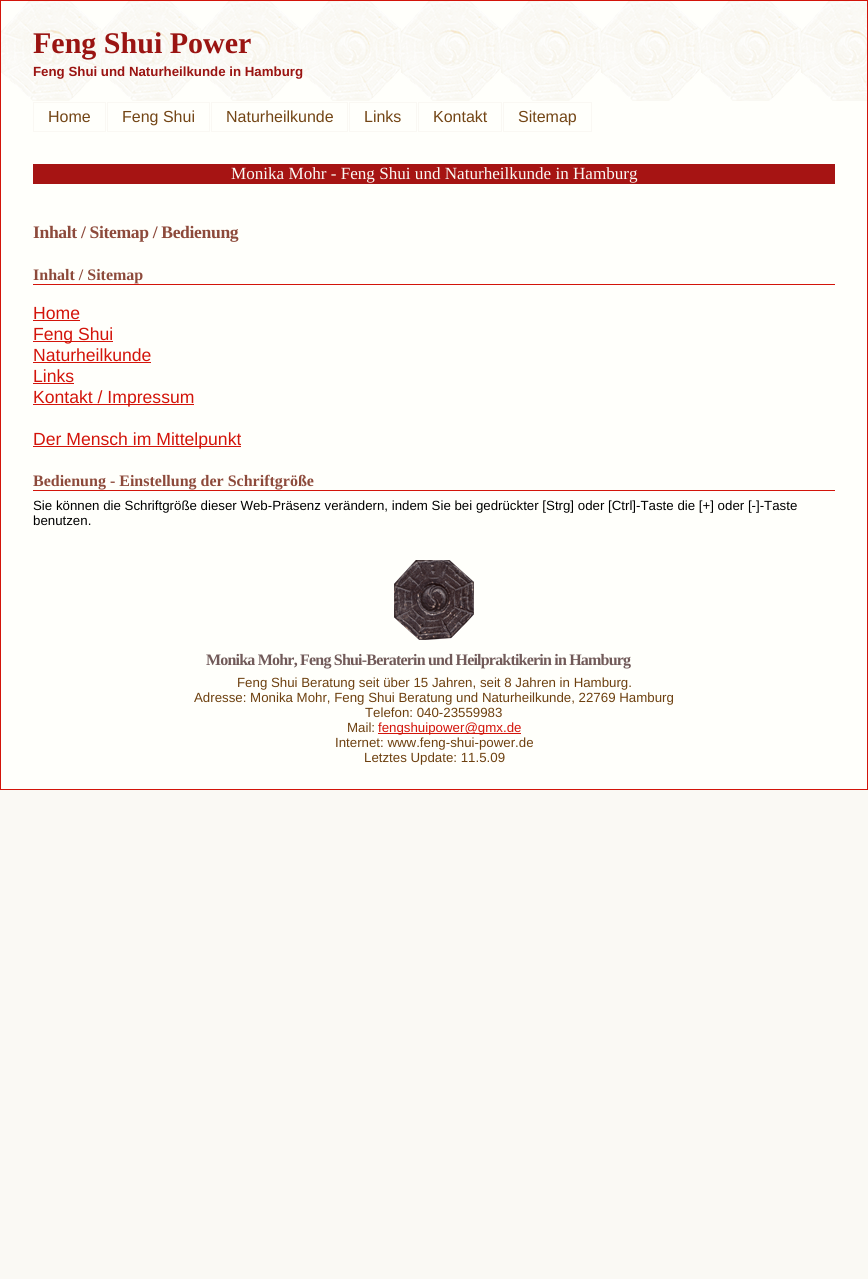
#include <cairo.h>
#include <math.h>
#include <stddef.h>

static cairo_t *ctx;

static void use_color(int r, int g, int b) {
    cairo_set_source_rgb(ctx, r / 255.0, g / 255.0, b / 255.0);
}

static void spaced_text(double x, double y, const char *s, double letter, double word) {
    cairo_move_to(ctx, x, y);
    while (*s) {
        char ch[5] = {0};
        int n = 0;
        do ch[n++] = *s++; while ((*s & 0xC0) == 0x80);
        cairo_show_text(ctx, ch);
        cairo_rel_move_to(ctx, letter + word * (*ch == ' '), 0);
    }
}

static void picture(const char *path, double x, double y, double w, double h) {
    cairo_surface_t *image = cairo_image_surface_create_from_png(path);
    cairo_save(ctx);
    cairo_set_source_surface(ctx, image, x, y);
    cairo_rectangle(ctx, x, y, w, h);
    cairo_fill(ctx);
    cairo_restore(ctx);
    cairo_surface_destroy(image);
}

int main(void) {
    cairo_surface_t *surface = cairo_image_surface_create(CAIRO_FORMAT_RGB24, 868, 1279);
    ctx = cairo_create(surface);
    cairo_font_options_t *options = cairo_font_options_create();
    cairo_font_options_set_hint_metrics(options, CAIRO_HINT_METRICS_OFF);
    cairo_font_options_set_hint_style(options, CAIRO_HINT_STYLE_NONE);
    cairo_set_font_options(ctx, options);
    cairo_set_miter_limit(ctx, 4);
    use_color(250, 249, 244);
    cairo_paint(ctx);
    use_color(255, 255, 251);
    cairo_rectangle(ctx, 1, 1, 866, 788);
    cairo_fill(ctx);
    picture("img1.png", 1, 1, 866, 100);
    cairo_rectangle(ctx, 0.5, 0.5, 867, 789);
    use_color(211, 20, 10);
    cairo_set_line_width(ctx, 1);
    cairo_stroke(ctx);
    cairo_select_font_face(ctx, "Liberation Serif", CAIRO_FONT_SLANT_NORMAL, CAIRO_FONT_WEIGHT_BOLD);
    cairo_set_font_size(ctx, 30);
    use_color(154, 20, 18);
    cairo_move_to(ctx, 33, 53);
    cairo_show_text(ctx, "Feng Shui Power");
    cairo_select_font_face(ctx, "Liberation Sans", CAIRO_FONT_SLANT_NORMAL, CAIRO_FONT_WEIGHT_BOLD);
    cairo_set_font_size(ctx, 13.28);
    cairo_move_to(ctx, 33, 76);
    cairo_show_text(ctx, "Feng Shui und Naturheilkunde in Hamburg");
    cairo_rectangle(ctx, 33.5, 102.5, 72, 29);
    use_color(250, 248, 243);
    cairo_stroke(ctx);
    cairo_select_font_face(ctx, "Liberation Sans", CAIRO_FONT_SLANT_NORMAL, CAIRO_FONT_WEIGHT_NORMAL);
    cairo_set_font_size(ctx, 16);
    use_color(115, 69, 21);
    cairo_move_to(ctx, 48, 122);
    cairo_show_text(ctx, "Home");
    cairo_rectangle(ctx, 107.5, 102.5, 102, 29);
    use_color(250, 248, 243);
    cairo_stroke(ctx);
    use_color(115, 69, 21);
    cairo_move_to(ctx, 122, 122);
    cairo_show_text(ctx, "Feng Shui");
    cairo_rectangle(ctx, 211.5, 102.5, 136, 29);
    use_color(250, 248, 243);
    cairo_stroke(ctx);
    use_color(115, 69, 21);
    cairo_move_to(ctx, 226, 122);
    cairo_show_text(ctx, "Naturheilkunde");
    cairo_rectangle(ctx, 349.5, 102.5, 67, 29);
    use_color(250, 248, 243);
    cairo_stroke(ctx);
    use_color(115, 69, 21);
    cairo_move_to(ctx, 364, 122);
    cairo_show_text(ctx, "Links");
    cairo_rectangle(ctx, 418.5, 102.5, 83, 29);
    use_color(250, 248, 243);
    cairo_stroke(ctx);
    use_color(115, 69, 21);
    cairo_move_to(ctx, 433, 122);
    cairo_show_text(ctx, "Kontakt");
    cairo_rectangle(ctx, 503.5, 102.5, 88, 29);
    use_color(250, 248, 243);
    cairo_stroke(ctx);
    use_color(115, 69, 21);
    cairo_move_to(ctx, 518, 122);
    cairo_show_text(ctx, "Sitemap");
    use_color(166, 20, 19);
    cairo_rectangle(ctx, 33, 164, 802, 20);
    cairo_fill(ctx);
    cairo_select_font_face(ctx, "Liberation Serif", CAIRO_FONT_SLANT_NORMAL, CAIRO_FONT_WEIGHT_NORMAL);
    cairo_set_font_size(ctx, 17.1);
    use_color(250, 249, 244);
    cairo_move_to(ctx, 231, 179);
    cairo_show_text(ctx, "Monika Mohr - Feng Shui und Naturheilkunde in Hamburg");
    cairo_select_font_face(ctx, "Liberation Serif", CAIRO_FONT_SLANT_NORMAL, CAIRO_FONT_WEIGHT_BOLD);
    cairo_set_font_size(ctx, 17.6);
    use_color(141, 74, 59);
    spaced_text(33, 238, "Inhalt / Sitemap / Bedienung", -0.35, 0);
    use_color(211, 20, 10);
    cairo_rectangle(ctx, 33, 284, 802, 1);
    cairo_fill(ctx);
    cairo_set_font_size(ctx, 16);
    use_color(141, 74, 59);
    cairo_move_to(ctx, 33, 280);
    cairo_show_text(ctx, "Inhalt / Sitemap");
    cairo_select_font_face(ctx, "Liberation Sans", CAIRO_FONT_SLANT_NORMAL, CAIRO_FONT_WEIGHT_NORMAL);
    cairo_set_font_size(ctx, 17.6);
    use_color(211, 20, 10);
    cairo_move_to(ctx, 33, 319);
    cairo_show_text(ctx, "Home");
    cairo_rectangle(ctx, 33, 320, 47, 1);
    cairo_fill(ctx);
    cairo_rectangle(ctx, 33, 341, 80, 1);
    cairo_fill(ctx);
    cairo_move_to(ctx, 33, 340);
    cairo_show_text(ctx, "Feng Shui");
    cairo_move_to(ctx, 33, 361);
    cairo_show_text(ctx, "Naturheilkunde");
    cairo_rectangle(ctx, 33, 362, 118, 1);
    cairo_fill(ctx);
    cairo_move_to(ctx, 33, 382);
    cairo_show_text(ctx, "Links");
    cairo_rectangle(ctx, 33, 383, 41, 1);
    cairo_fill(ctx);
    cairo_rectangle(ctx, 33, 404, 161, 1);
    cairo_fill(ctx);
    cairo_move_to(ctx, 33, 403);
    cairo_show_text(ctx, "Kontakt / Impressum");
    cairo_rectangle(ctx, 33, 446, 208, 1);
    cairo_fill(ctx);
    cairo_move_to(ctx, 33, 445);
    cairo_show_text(ctx, "Der Mensch im Mittelpunkt");
    cairo_rectangle(ctx, 33, 490, 802, 1);
    cairo_fill(ctx);
    cairo_select_font_face(ctx, "Liberation Serif", CAIRO_FONT_SLANT_NORMAL, CAIRO_FONT_WEIGHT_BOLD);
    cairo_set_font_size(ctx, 16);
    use_color(141, 74, 59);
    cairo_move_to(ctx, 33, 486);
    cairo_show_text(ctx, "Bedienung - Einstellung der Schriftgröße");
    cairo_select_font_face(ctx, "Liberation Sans", CAIRO_FONT_SLANT_NORMAL, CAIRO_FONT_WEIGHT_NORMAL);
    cairo_set_font_size(ctx, 13.28);
    use_color(0, 0, 0);
    cairo_move_to(ctx, 33, 510);
    cairo_show_text(ctx, "Sie können die Schriftgröße dieser Web-Präsenz verändern, indem Sie bei gedrückter [Strg] oder [Ctrl]-Taste die [+] oder [-]-Taste");
    cairo_move_to(ctx, 33, 525);
    cairo_show_text(ctx, "benutzen.");
    picture("img2.png", 394, 560, 80, 80);
    cairo_select_font_face(ctx, "Liberation Serif", CAIRO_FONT_SLANT_NORMAL, CAIRO_FONT_WEIGHT_BOLD);
    cairo_set_font_size(ctx, 16);
    use_color(113, 90, 89);
    spaced_text(206, 665, "Monika Mohr, Feng Shui-Beraterin und Heilpraktikerin in Hamburg", -0.8, 0);
    cairo_select_font_face(ctx, "Liberation Sans", CAIRO_FONT_SLANT_NORMAL, CAIRO_FONT_WEIGHT_NORMAL);
    cairo_set_font_size(ctx, 13.28);
    use_color(109, 64, 15);
    cairo_move_to(ctx, 237, 687);
    cairo_show_text(ctx, "Feng Shui Beratung seit über 15 Jahren, seit 8 Jahren in Hamburg.");
    cairo_move_to(ctx, 194, 702);
    cairo_show_text(ctx, "Adresse: Monika Mohr, Feng Shui Beratung und Naturheilkunde, 22769 Hamburg");
    cairo_move_to(ctx, 365, 717);
    cairo_show_text(ctx, "Telefon: 040-23559983");
    cairo_move_to(ctx, 347, 732);
    cairo_show_text(ctx, "Mail:");
    use_color(211, 20, 10);
    cairo_rectangle(ctx, 378, 733, 143, 1);
    cairo_fill(ctx);
    cairo_move_to(ctx, 378, 732);
    cairo_show_text(ctx, "fengshuipower@gmx.de");
    use_color(109, 64, 15);
    cairo_move_to(ctx, 335, 747);
    cairo_show_text(ctx, "Internet: www.feng-shui-power.de");
    cairo_move_to(ctx, 364, 762);
    cairo_show_text(ctx, "Letztes Update: 11.5.09");
    cairo_surface_write_to_png(surface, "result.png");
    cairo_font_options_destroy(options);
    cairo_destroy(ctx);
    cairo_surface_destroy(surface);
    return 0;
}
